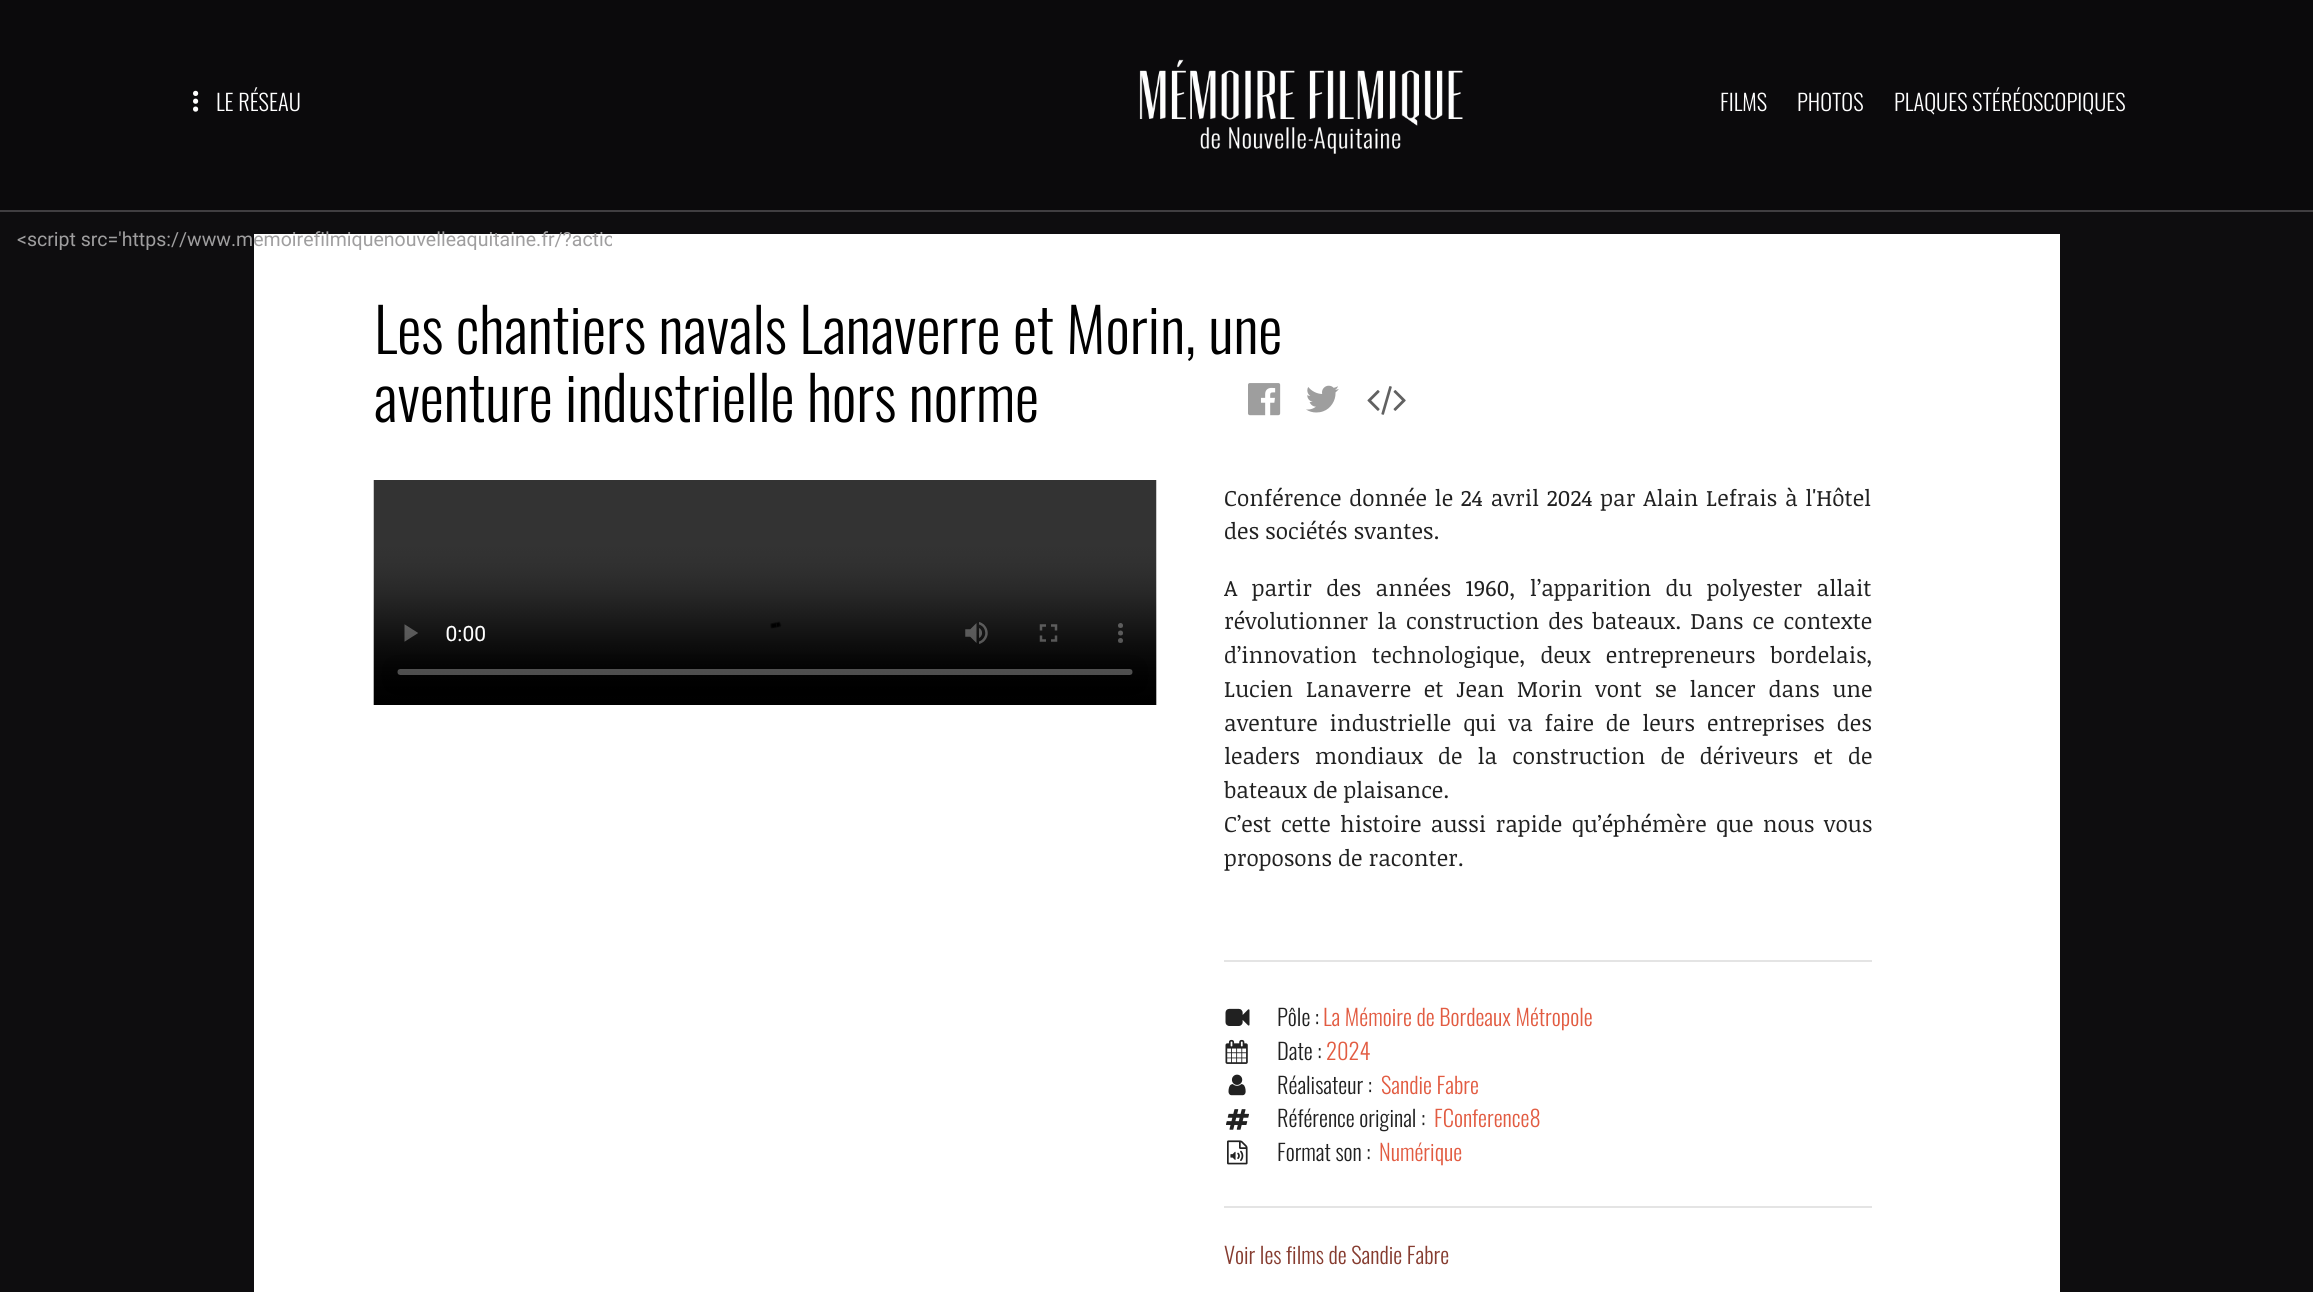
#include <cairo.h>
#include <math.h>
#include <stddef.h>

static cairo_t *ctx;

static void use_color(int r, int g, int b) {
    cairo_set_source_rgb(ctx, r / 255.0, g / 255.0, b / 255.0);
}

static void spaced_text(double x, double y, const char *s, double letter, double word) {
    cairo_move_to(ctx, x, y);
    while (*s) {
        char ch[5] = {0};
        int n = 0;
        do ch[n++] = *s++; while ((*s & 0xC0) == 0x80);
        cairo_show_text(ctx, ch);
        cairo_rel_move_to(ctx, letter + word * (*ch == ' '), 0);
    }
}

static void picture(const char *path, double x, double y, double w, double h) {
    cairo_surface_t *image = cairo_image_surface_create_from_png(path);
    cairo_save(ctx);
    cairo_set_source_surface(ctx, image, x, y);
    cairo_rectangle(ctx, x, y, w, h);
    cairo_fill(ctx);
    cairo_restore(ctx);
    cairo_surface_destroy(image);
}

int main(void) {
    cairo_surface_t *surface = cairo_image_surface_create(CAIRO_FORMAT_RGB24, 2313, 1292);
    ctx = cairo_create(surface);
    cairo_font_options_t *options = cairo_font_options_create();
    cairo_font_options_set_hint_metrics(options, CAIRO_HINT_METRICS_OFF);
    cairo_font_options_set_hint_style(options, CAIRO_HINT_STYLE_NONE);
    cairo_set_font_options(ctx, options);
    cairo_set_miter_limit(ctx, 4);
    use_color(14, 13, 15);
    cairo_paint(ctx);
    use_color(11, 10, 12);
    cairo_rectangle(ctx, 0, 0, 2313, 210);
    cairo_fill(ctx);
    use_color(64, 62, 65);
    cairo_rectangle(ctx, 0, 210, 2313, 2);
    cairo_fill(ctx);
    use_color(255, 255, 255);
    cairo_arc(ctx, 195.6, 93.4, 2.6, 0, 2 * M_PI);
    cairo_fill(ctx);
    cairo_select_font_face(ctx, "Oswald Light", CAIRO_FONT_SLANT_NORMAL, CAIRO_FONT_WEIGHT_NORMAL);
    cairo_set_font_size(ctx, 22.5);
    cairo_move_to(ctx, 216, 111);
    cairo_show_text(ctx, "LE RÉSEAU");
    cairo_new_path(ctx);
    cairo_arc(ctx, 195.6, 101.2, 2.6, 0, 2 * M_PI);
    cairo_fill(ctx);
    cairo_arc(ctx, 195.6, 109.1, 2.6, 0, 2 * M_PI);
    cairo_fill(ctx);
    picture("img1.png", 1139, 59, 324, 95);
    cairo_move_to(ctx, 1720, 111);
    cairo_show_text(ctx, "FILMS");
    cairo_move_to(ctx, 1797, 111);
    cairo_show_text(ctx, "PHOTOS");
    cairo_move_to(ctx, 1894, 111);
    cairo_show_text(ctx, "PLAQUES STÉRÉOSCOPIQUES");
    cairo_rectangle(ctx, 254, 234, 1806, 1058);
    cairo_fill(ctx);
    cairo_save(ctx);
    cairo_rectangle(ctx, 17, 228, 595, 23);
    cairo_clip(ctx);
    cairo_select_font_face(ctx, "Roboto", CAIRO_FONT_SLANT_NORMAL, CAIRO_FONT_WEIGHT_NORMAL);
    cairo_set_font_size(ctx, 19.5);
    use_color(159, 158, 159);
    cairo_move_to(ctx, 17, 246);
    cairo_show_text(ctx, "<script src='https://www.memoirefilmiquenouvelleaquitaine.fr/?actio");
    cairo_restore(ctx);
    cairo_set_font_size(ctx, 60.75);
    use_color(0, 0, 0);
    cairo_move_to(ctx, 374, 354);
    cairo_show_text(ctx, "Les chantiers navals Lanaverre et Morin, une");
    cairo_move_to(ctx, 374, 422);
    cairo_show_text(ctx, "aventure industrielle hors norme");
    picture("img2.png", 1248, 383, 33, 33);
    picture("img3.png", 1306, 385, 33, 28);
    picture("img4.png", 1367, 386, 39, 29);
    picture("img5.png", 373, 480, 784, 225);
    cairo_select_font_face(ctx, "Noticia Text", CAIRO_FONT_SLANT_NORMAL, CAIRO_FONT_WEIGHT_NORMAL);
    cairo_set_font_size(ctx, 22.5);
    use_color(33, 33, 33);
    spaced_text(1224, 506, "Conférence donnée le 24 avril 2024 par Alain Lefrais à l'Hôtel", 0, 1.75);
    cairo_move_to(ctx, 1224, 539);
    cairo_show_text(ctx, "des sociétés svantes.");
    spaced_text(1224, 596, "A partir des années 1960, l’apparition du polyester allait", 0, 8.25);
    spaced_text(1224, 629, "révolutionner la construction des bateaux. Dans ce contexte", 0, 3);
    spaced_text(1224, 663, "d’innovation technologique, deux entrepreneurs bordelais,", 0, 9);
    spaced_text(1224, 697, "Lucien Lanaverre et Jean Morin vont se lancer dans une", 0, 6.75);
    spaced_text(1224, 731, "aventure industrielle qui va faire de leurs entreprises des", 0, 6);
    spaced_text(1224, 764, "leaders mondiaux de la construction de dériveurs et de", 0, 9);
    cairo_move_to(ctx, 1224, 798);
    cairo_show_text(ctx, "bateaux de plaisance.");
    spaced_text(1224, 832, "C’est cette histoire aussi rapide qu’éphémère que nous vous", 0, 3.5);
    cairo_move_to(ctx, 1224, 866);
    cairo_show_text(ctx, "proposons de raconter.");
    use_color(228, 228, 228);
    cairo_rectangle(ctx, 1224, 960, 648, 2);
    cairo_fill(ctx);
    cairo_rectangle(ctx, 1224, 1206, 648, 2);
    cairo_fill(ctx);
    picture("img6.png", 1225, 1008, 25, 18);
    cairo_select_font_face(ctx, "Oswald Light", CAIRO_FONT_SLANT_NORMAL, CAIRO_FONT_WEIGHT_NORMAL);
    use_color(33, 33, 33);
    cairo_move_to(ctx, 1277, 1026);
    cairo_show_text(ctx, "Pôle :");
    use_color(226, 92, 66);
    cairo_move_to(ctx, 1323, 1026);
    cairo_show_text(ctx, "La Mémoire de Bordeaux Métropole");
    picture("img7.png", 1225, 1039, 23, 25);
    use_color(33, 33, 33);
    cairo_move_to(ctx, 1277, 1060);
    cairo_show_text(ctx, "Date :");
    use_color(226, 92, 66);
    cairo_move_to(ctx, 1326, 1060);
    cairo_show_text(ctx, "2024");
    picture("img8.png", 1228, 1074, 18, 22);
    use_color(33, 33, 33);
    cairo_move_to(ctx, 1277, 1094);
    cairo_show_text(ctx, "Réalisateur :");
    use_color(226, 92, 66);
    cairo_move_to(ctx, 1381, 1094);
    cairo_show_text(ctx, "Sandie Fabre");
    picture("img9.png", 1226, 1109, 23, 21);
    use_color(33, 33, 33);
    cairo_move_to(ctx, 1277, 1127);
    cairo_show_text(ctx, "Référence original :");
    use_color(226, 92, 66);
    cairo_move_to(ctx, 1434, 1127);
    cairo_show_text(ctx, "FConference8");
    picture("img10.png", 1227, 1140, 21, 25);
    use_color(33, 33, 33);
    cairo_move_to(ctx, 1277, 1161);
    cairo_show_text(ctx, "Format son :");
    use_color(226, 92, 66);
    cairo_move_to(ctx, 1379, 1161);
    cairo_show_text(ctx, "Numérique");
    use_color(134, 60, 48);
    cairo_move_to(ctx, 1224, 1264);
    cairo_show_text(ctx, "Voir les films de Sandie Fabre");
    cairo_surface_write_to_png(surface, "result.png");
    cairo_font_options_destroy(options);
    cairo_destroy(ctx);
    cairo_surface_destroy(surface);
    return 0;
}
